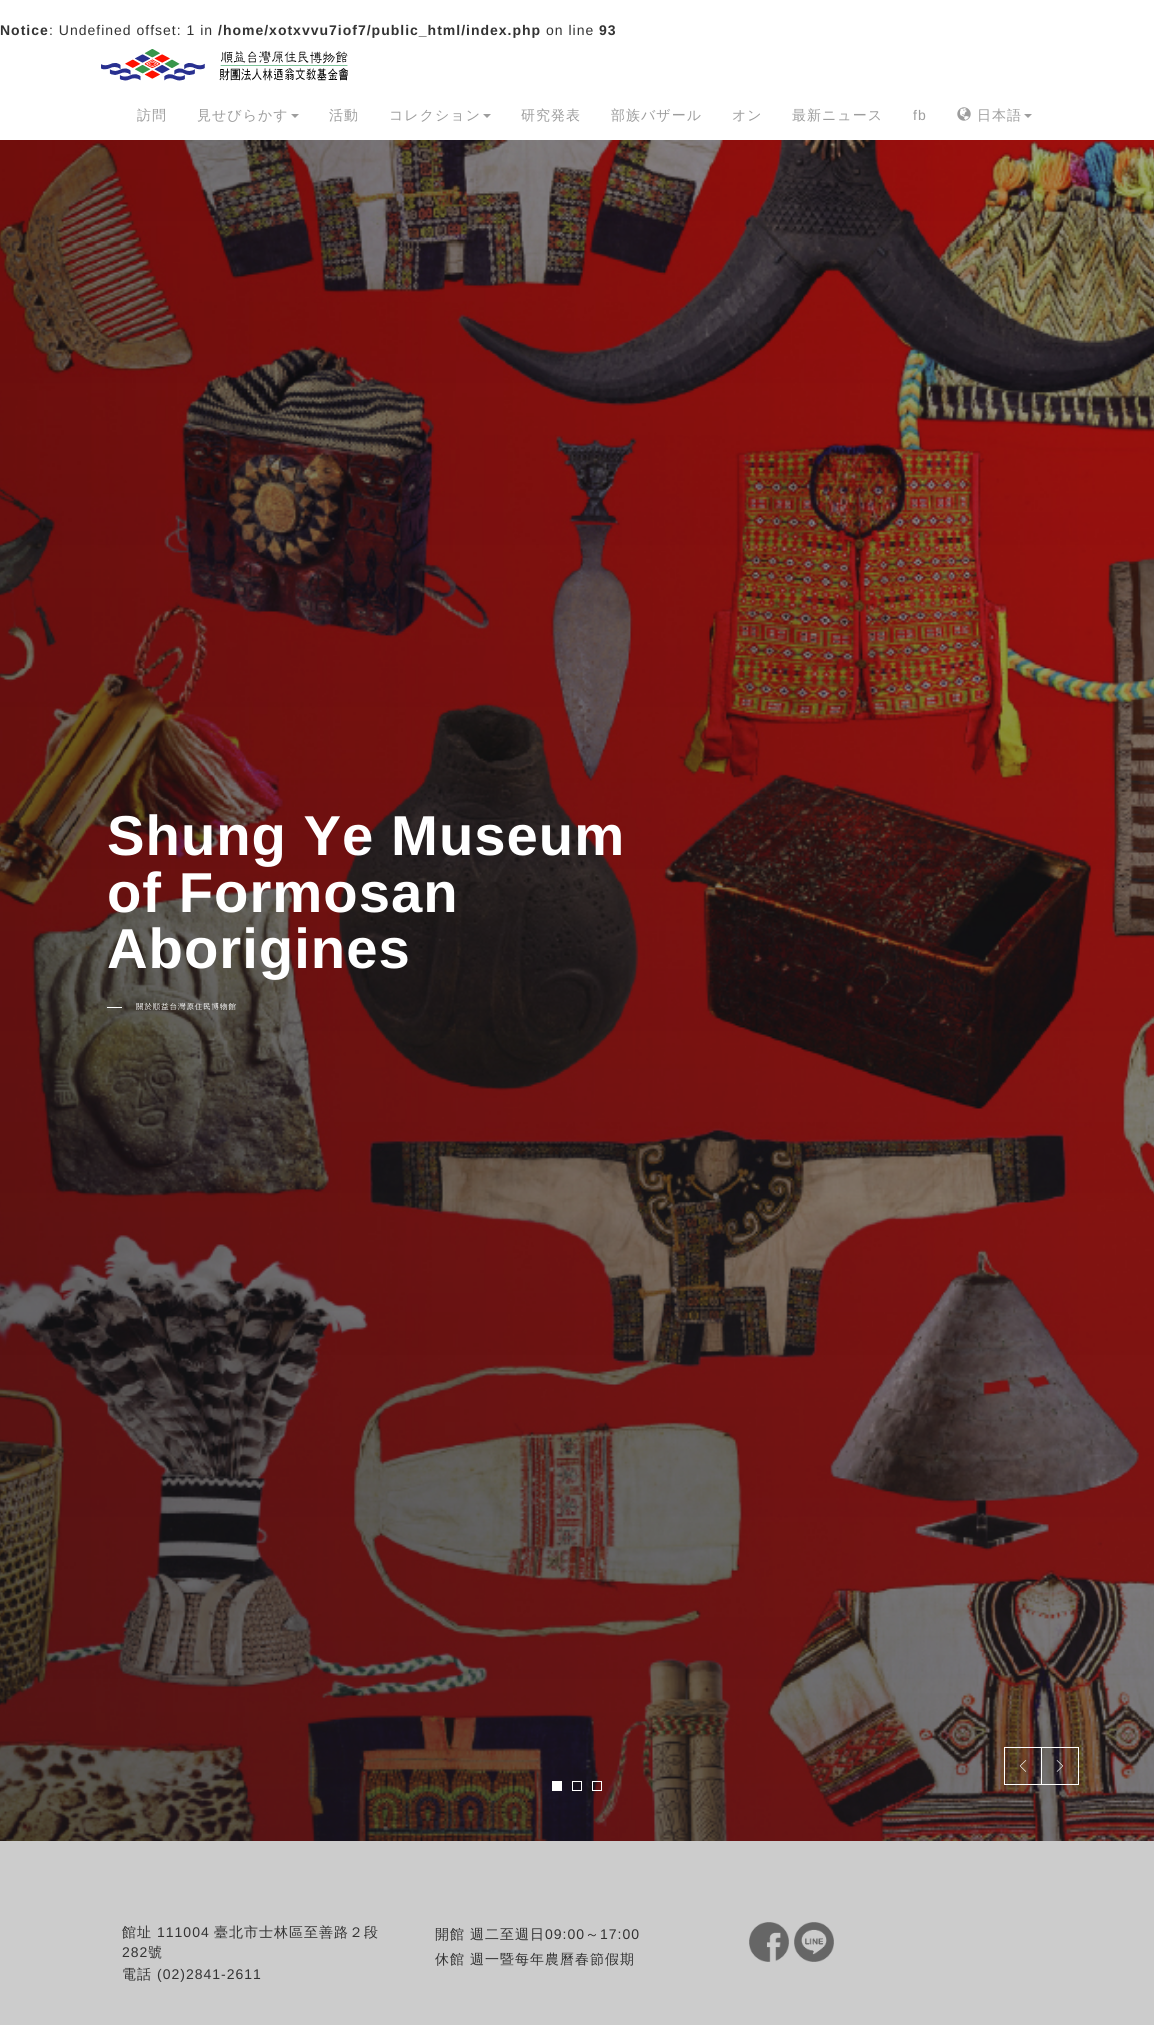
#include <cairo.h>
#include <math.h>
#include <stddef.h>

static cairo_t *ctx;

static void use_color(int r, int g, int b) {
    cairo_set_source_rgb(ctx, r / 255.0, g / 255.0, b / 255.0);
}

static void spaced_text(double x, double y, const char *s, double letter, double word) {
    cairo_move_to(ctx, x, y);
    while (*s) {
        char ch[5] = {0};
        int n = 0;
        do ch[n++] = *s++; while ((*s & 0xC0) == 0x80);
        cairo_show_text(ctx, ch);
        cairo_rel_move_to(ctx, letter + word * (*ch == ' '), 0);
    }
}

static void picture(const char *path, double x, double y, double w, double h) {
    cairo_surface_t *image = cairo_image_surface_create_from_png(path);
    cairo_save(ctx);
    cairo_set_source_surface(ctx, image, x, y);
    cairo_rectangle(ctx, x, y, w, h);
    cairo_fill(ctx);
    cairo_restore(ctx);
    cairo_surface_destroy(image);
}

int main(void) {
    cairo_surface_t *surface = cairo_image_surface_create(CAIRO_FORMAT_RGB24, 1154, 2025);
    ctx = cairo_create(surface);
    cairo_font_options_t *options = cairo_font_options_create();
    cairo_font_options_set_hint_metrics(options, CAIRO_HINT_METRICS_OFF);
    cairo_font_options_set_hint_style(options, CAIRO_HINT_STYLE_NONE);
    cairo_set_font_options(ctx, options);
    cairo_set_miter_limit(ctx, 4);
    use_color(255, 255, 255);
    cairo_paint(ctx);
    cairo_select_font_face(ctx, "Liberation Sans", CAIRO_FONT_SLANT_NORMAL, CAIRO_FONT_WEIGHT_BOLD);
    cairo_set_font_size(ctx, 14);
    use_color(51, 51, 51);
    spaced_text(0, 35, "Notice", 1, 0);
    cairo_select_font_face(ctx, "Liberation Sans", CAIRO_FONT_SLANT_NORMAL, CAIRO_FONT_WEIGHT_NORMAL);
    spaced_text(49, 35, ": Undefined offset: 1 in", 1, 0);
    cairo_select_font_face(ctx, "Liberation Sans", CAIRO_FONT_SLANT_NORMAL, CAIRO_FONT_WEIGHT_BOLD);
    spaced_text(218, 35, "/home/xotxvvu7iof7/public_html/index.php", 1, 0);
    cairo_select_font_face(ctx, "Liberation Sans", CAIRO_FONT_SLANT_NORMAL, CAIRO_FONT_WEIGHT_NORMAL);
    spaced_text(546, 35, "on line", 1, 0);
    cairo_select_font_face(ctx, "Liberation Sans", CAIRO_FONT_SLANT_NORMAL, CAIRO_FONT_WEIGHT_BOLD);
    spaced_text(599, 35, "93", 1, 0);
    picture("img1.png", 101, 49, 247, 32);
    cairo_select_font_face(ctx, "WenQuanYi Zen Hei Medium", CAIRO_FONT_SLANT_NORMAL, CAIRO_FONT_WEIGHT_NORMAL);
    use_color(157, 157, 157);
    spaced_text(137, 120, "訪問", 1, 0);
    spaced_text(197, 120, "見せびらかす", 1, 0);
    cairo_new_path(ctx);
    cairo_move_to(ctx, 291, 114);
    cairo_line_to(ctx, 299, 114);
    cairo_line_to(ctx, 295, 118);
    cairo_close_path(ctx);
    cairo_fill(ctx);
    spaced_text(329, 120, "活動", 1, 0);
    spaced_text(389, 120, "コレクション", 1, 0);
    cairo_new_path(ctx);
    cairo_move_to(ctx, 483, 114);
    cairo_line_to(ctx, 491, 114);
    cairo_line_to(ctx, 487, 118);
    cairo_close_path(ctx);
    cairo_fill(ctx);
    spaced_text(521, 120, "研究発表", 1, 0);
    spaced_text(611, 120, "部族バザール", 1, 0);
    spaced_text(732, 120, "オン", 1, 0);
    spaced_text(792, 120, "最新ニュース", 1, 0);
    cairo_select_font_face(ctx, "Liberation Sans", CAIRO_FONT_SLANT_NORMAL, CAIRO_FONT_WEIGHT_NORMAL);
    spaced_text(913, 120, "fb", 1, 0);
    picture("img2.png", 957, 107, 14, 14);
    cairo_select_font_face(ctx, "WenQuanYi Zen Hei Medium", CAIRO_FONT_SLANT_NORMAL, CAIRO_FONT_WEIGHT_NORMAL);
    spaced_text(977, 120, "日本語", 1, 0);
    cairo_new_path(ctx);
    cairo_move_to(ctx, 1024, 114);
    cairo_line_to(ctx, 1032, 114);
    cairo_line_to(ctx, 1028, 118);
    cairo_close_path(ctx);
    cairo_fill(ctx);
    picture("img3.png", 0, 140, 1154, 1701);
    cairo_select_font_face(ctx, "Liberation Sans", CAIRO_FONT_SLANT_NORMAL, CAIRO_FONT_WEIGHT_BOLD);
    cairo_set_font_size(ctx, 56.25);
    use_color(255, 255, 255);
    spaced_text(107, 855, "Shung Ye Museum", 1, 0);
    spaced_text(107, 912, "of Formosan", 1, 0);
    spaced_text(107, 968, "Aborigines", 1, 0);
    cairo_rectangle(ctx, 107, 1007, 15, 1);
    cairo_fill(ctx);
    cairo_select_font_face(ctx, "WenQuanYi Zen Hei Medium", CAIRO_FONT_SLANT_NORMAL, CAIRO_FONT_WEIGHT_NORMAL);
    cairo_set_font_size(ctx, 7.5);
    spaced_text(136, 1009, "關於順益台灣原住民博物館", 0.9, 0);
    cairo_rectangle(ctx, 1004.5, 1747.5, 37, 37);
    cairo_set_line_width(ctx, 1);
    cairo_stroke(ctx);
    picture("img4.png", 1019, 1760, 8, 12);
    cairo_rectangle(ctx, 1042, 1747, 37, 1);
    cairo_fill(ctx);
    cairo_rectangle(ctx, 1078, 1747, 1, 38);
    cairo_fill(ctx);
    cairo_rectangle(ctx, 1042, 1784, 37, 1);
    cairo_fill(ctx);
    picture("img5.png", 1056, 1760, 8, 12);
    cairo_rectangle(ctx, 552, 1781, 10, 10);
    cairo_fill(ctx);
    cairo_rectangle(ctx, 572.5, 1781.5, 9, 9);
    cairo_stroke(ctx);
    cairo_rectangle(ctx, 592.5, 1781.5, 9, 9);
    cairo_stroke(ctx);
    use_color(204, 204, 204);
    cairo_rectangle(ctx, 0, 1841, 1154, 184);
    cairo_fill(ctx);
    cairo_set_font_size(ctx, 14);
    use_color(51, 51, 51);
    spaced_text(122, 1937, "館址", 1, 0);
    cairo_select_font_face(ctx, "Liberation Sans", CAIRO_FONT_SLANT_NORMAL, CAIRO_FONT_WEIGHT_NORMAL);
    spaced_text(157, 1937, "111004", 1, 0);
    cairo_select_font_face(ctx, "WenQuanYi Zen Hei Medium", CAIRO_FONT_SLANT_NORMAL, CAIRO_FONT_WEIGHT_NORMAL);
    spaced_text(214, 1937, "臺北市士林區至善路２段", 1, 0);
    cairo_select_font_face(ctx, "Liberation Sans", CAIRO_FONT_SLANT_NORMAL, CAIRO_FONT_WEIGHT_NORMAL);
    spaced_text(122, 1957, "282", 1, 0);
    cairo_select_font_face(ctx, "WenQuanYi Zen Hei Medium", CAIRO_FONT_SLANT_NORMAL, CAIRO_FONT_WEIGHT_NORMAL);
    spaced_text(148, 1957, "號", 1, 0);
    spaced_text(122, 1979, "電話", 1, 0);
    cairo_select_font_face(ctx, "Liberation Sans", CAIRO_FONT_SLANT_NORMAL, CAIRO_FONT_WEIGHT_NORMAL);
    spaced_text(157, 1979, "(02)2841-2611", 1, 0);
    cairo_select_font_face(ctx, "WenQuanYi Zen Hei Medium", CAIRO_FONT_SLANT_NORMAL, CAIRO_FONT_WEIGHT_NORMAL);
    spaced_text(435, 1939, "開館", 1, 0);
    spaced_text(470, 1939, "週二至週日", 1, 0);
    cairo_select_font_face(ctx, "Liberation Sans", CAIRO_FONT_SLANT_NORMAL, CAIRO_FONT_WEIGHT_NORMAL);
    spaced_text(545, 1939, "09:00", 1, 0);
    cairo_select_font_face(ctx, "WenQuanYi Zen Hei Medium", CAIRO_FONT_SLANT_NORMAL, CAIRO_FONT_WEIGHT_NORMAL);
    spaced_text(585, 1939, "～", 1, 0);
    cairo_select_font_face(ctx, "Liberation Sans", CAIRO_FONT_SLANT_NORMAL, CAIRO_FONT_WEIGHT_NORMAL);
    spaced_text(600, 1939, "17:00", 1, 0);
    cairo_select_font_face(ctx, "WenQuanYi Zen Hei Medium", CAIRO_FONT_SLANT_NORMAL, CAIRO_FONT_WEIGHT_NORMAL);
    spaced_text(435, 1964, "休館", 1, 0);
    spaced_text(470, 1964, "週一暨每年農曆春節假期", 1, 0);
    picture("img6.png", 749, 1922, 40, 40);
    picture("img7.png", 794, 1922, 40, 40);
    cairo_surface_write_to_png(surface, "result.png");
    cairo_font_options_destroy(options);
    cairo_destroy(ctx);
    cairo_surface_destroy(surface);
    return 0;
}
